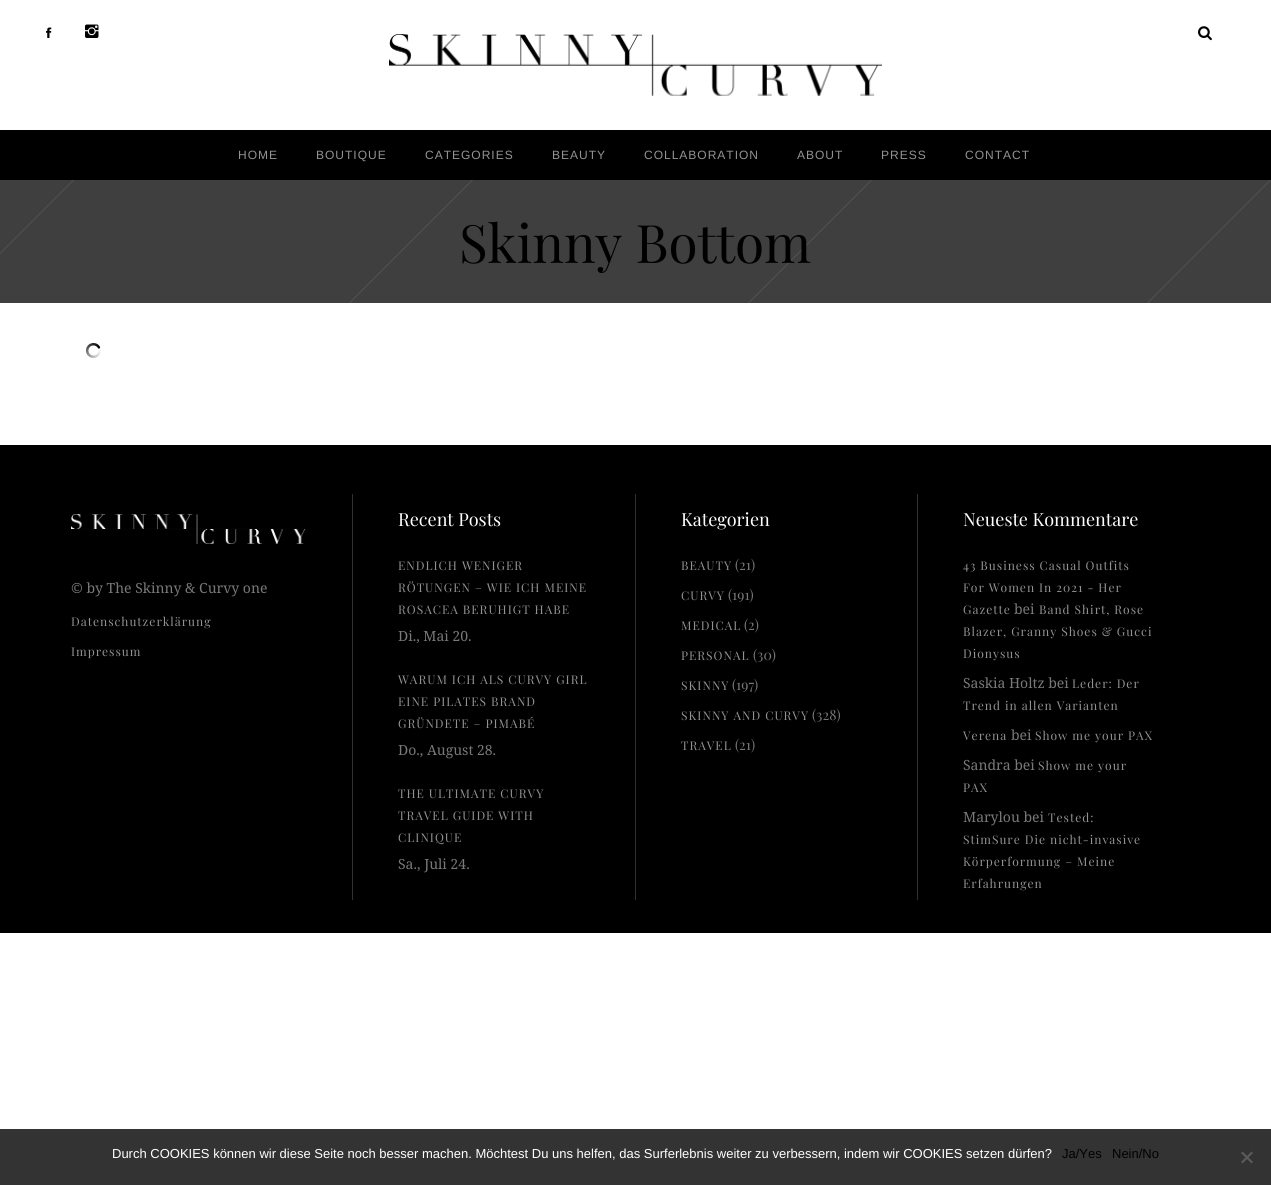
#include <cairo.h>
#include <math.h>
#include <stddef.h>

static cairo_t *ctx;

static void use_color(int r, int g, int b) {
    cairo_set_source_rgb(ctx, r / 255.0, g / 255.0, b / 255.0);
}

static void spaced_text(double x, double y, const char *s, double letter, double word) {
    cairo_move_to(ctx, x, y);
    while (*s) {
        char ch[5] = {0};
        int n = 0;
        do ch[n++] = *s++; while ((*s & 0xC0) == 0x80);
        cairo_show_text(ctx, ch);
        cairo_rel_move_to(ctx, letter + word * (*ch == ' '), 0);
    }
}

static void picture(const char *path, double x, double y, double w, double h) {
    cairo_surface_t *image = cairo_image_surface_create_from_png(path);
    cairo_save(ctx);
    cairo_set_source_surface(ctx, image, x, y);
    cairo_rectangle(ctx, x, y, w, h);
    cairo_fill(ctx);
    cairo_restore(ctx);
    cairo_surface_destroy(image);
}

int main(void) {
    cairo_surface_t *surface = cairo_image_surface_create(CAIRO_FORMAT_RGB24, 1271, 1185);
    ctx = cairo_create(surface);
    cairo_font_options_t *options = cairo_font_options_create();
    cairo_font_options_set_hint_metrics(options, CAIRO_HINT_METRICS_OFF);
    cairo_font_options_set_hint_style(options, CAIRO_HINT_STYLE_NONE);
    cairo_set_font_options(ctx, options);
    cairo_set_miter_limit(ctx, 4);
    use_color(255, 255, 255);
    cairo_paint(ctx);
    picture("img1.png", 46, 27, 6, 11);
    picture("img2.png", 85, 24, 14, 14);
    picture("img3.png", 1198, 26, 14, 15);
    picture("img4.png", 389, 34, 493, 62);
    use_color(0, 0, 0);
    cairo_rectangle(ctx, 0, 130, 1271, 50);
    cairo_fill(ctx);
    cairo_select_font_face(ctx, "Arimo", CAIRO_FONT_SLANT_NORMAL, CAIRO_FONT_WEIGHT_NORMAL);
    cairo_set_font_size(ctx, 12);
    use_color(147, 147, 147);
    spaced_text(238, 159, "HOME", 1, 0);
    spaced_text(316, 159, "BOUTIQUE", 1, 0);
    spaced_text(425, 159, "CATEGORIES", 1, 0);
    spaced_text(552, 159, "BEAUTY", 1, 0);
    spaced_text(644, 159, "COLLABORATION", 1, 0);
    spaced_text(797, 159, "ABOUT", 1, 0);
    spaced_text(881, 159, "PRESS", 1, 0);
    spaced_text(965, 159, "CONTACT", 1, 0);
    picture("img5.png", 0, 180, 1271, 123);
    cairo_select_font_face(ctx, "Playfair Display", CAIRO_FONT_SLANT_NORMAL, CAIRO_FONT_WEIGHT_NORMAL);
    cairo_set_font_size(ctx, 53);
    use_color(0, 0, 0);
    cairo_move_to(ctx, 459, 263);
    cairo_show_text(ctx, "Skinny Bottom");
    picture("img6.png", 86, 343, 15, 15);
    cairo_rectangle(ctx, 0, 445, 1271, 488);
    cairo_fill(ctx);
    use_color(49, 49, 49);
    cairo_rectangle(ctx, 352, 494, 1, 406);
    cairo_fill(ctx);
    picture("img7.png", 71, 514, 235, 30);
    cairo_select_font_face(ctx, "Noto Serif", CAIRO_FONT_SLANT_NORMAL, CAIRO_FONT_WEIGHT_NORMAL);
    cairo_set_font_size(ctx, 14);
    use_color(121, 121, 121);
    cairo_move_to(ctx, 71, 593);
    cairo_show_text(ctx, "© by The Skinny & Curvy one");
    cairo_select_font_face(ctx, "Playfair Display", CAIRO_FONT_SLANT_NORMAL, CAIRO_FONT_WEIGHT_NORMAL);
    cairo_set_font_size(ctx, 12);
    use_color(147, 147, 147);
    spaced_text(71, 626, "Datenschutzerklärung", 1, 0);
    spaced_text(71, 656, "Impressum", 1, 0);
    use_color(49, 49, 49);
    cairo_rectangle(ctx, 635, 494, 1, 406);
    cairo_fill(ctx);
    cairo_set_font_size(ctx, 18);
    use_color(255, 255, 255);
    cairo_move_to(ctx, 398, 526);
    cairo_show_text(ctx, "Recent Posts");
    cairo_set_font_size(ctx, 12);
    use_color(147, 147, 147);
    spaced_text(398, 570, "ENDLICH WENIGER", 1, 0);
    spaced_text(398, 592, "RÖTUNGEN – WIE ICH MEINE", 1, 0);
    spaced_text(398, 614, "ROSACEA BERUHIGT HABE", 1, 0);
    cairo_select_font_face(ctx, "Noto Serif", CAIRO_FONT_SLANT_NORMAL, CAIRO_FONT_WEIGHT_NORMAL);
    cairo_set_font_size(ctx, 14);
    use_color(121, 121, 121);
    cairo_move_to(ctx, 398, 641);
    cairo_show_text(ctx, "Di., Mai 20.");
    cairo_select_font_face(ctx, "Playfair Display", CAIRO_FONT_SLANT_NORMAL, CAIRO_FONT_WEIGHT_NORMAL);
    cairo_set_font_size(ctx, 12);
    use_color(147, 147, 147);
    spaced_text(398, 684, "WARUM ICH ALS CURVY GIRL", 1, 0);
    spaced_text(398, 706, "EINE PILATES BRAND", 1, 0);
    spaced_text(398, 728, "GRÜNDETE – PIMABÉ", 1, 0);
    cairo_select_font_face(ctx, "Noto Serif", CAIRO_FONT_SLANT_NORMAL, CAIRO_FONT_WEIGHT_NORMAL);
    cairo_set_font_size(ctx, 14);
    use_color(121, 121, 121);
    cairo_move_to(ctx, 398, 755);
    cairo_show_text(ctx, "Do., August 28.");
    cairo_select_font_face(ctx, "Playfair Display", CAIRO_FONT_SLANT_NORMAL, CAIRO_FONT_WEIGHT_NORMAL);
    cairo_set_font_size(ctx, 12);
    use_color(147, 147, 147);
    spaced_text(398, 798, "THE ULTIMATE CURVY", 1, 0);
    spaced_text(398, 820, "TRAVEL GUIDE WITH", 1, 0);
    spaced_text(398, 842, "CLINIQUE", 1, 0);
    cairo_select_font_face(ctx, "Noto Serif", CAIRO_FONT_SLANT_NORMAL, CAIRO_FONT_WEIGHT_NORMAL);
    cairo_set_font_size(ctx, 14);
    use_color(121, 121, 121);
    cairo_move_to(ctx, 398, 869);
    cairo_show_text(ctx, "Sa., Juli 24.");
    use_color(49, 49, 49);
    cairo_rectangle(ctx, 917, 494, 1, 406);
    cairo_fill(ctx);
    cairo_select_font_face(ctx, "Playfair Display", CAIRO_FONT_SLANT_NORMAL, CAIRO_FONT_WEIGHT_NORMAL);
    cairo_set_font_size(ctx, 18);
    use_color(255, 255, 255);
    cairo_move_to(ctx, 681, 526);
    cairo_show_text(ctx, "Kategorien");
    cairo_set_font_size(ctx, 12);
    use_color(147, 147, 147);
    spaced_text(681, 570, "BEAUTY", 1, 0);
    cairo_set_font_size(ctx, 14);
    use_color(121, 121, 121);
    cairo_move_to(ctx, 735, 570);
    cairo_show_text(ctx, "(21)");
    cairo_set_font_size(ctx, 12);
    use_color(147, 147, 147);
    spaced_text(681, 600, "CURVY", 1, 0);
    cairo_set_font_size(ctx, 14);
    use_color(121, 121, 121);
    cairo_move_to(ctx, 728, 600);
    cairo_show_text(ctx, "(191)");
    cairo_set_font_size(ctx, 12);
    use_color(147, 147, 147);
    spaced_text(681, 630, "MEDICAL", 1, 0);
    cairo_set_font_size(ctx, 14);
    use_color(121, 121, 121);
    cairo_move_to(ctx, 744, 630);
    cairo_show_text(ctx, "(2)");
    cairo_set_font_size(ctx, 12);
    use_color(147, 147, 147);
    spaced_text(681, 660, "PERSONAL", 1, 0);
    cairo_set_font_size(ctx, 14);
    use_color(121, 121, 121);
    cairo_move_to(ctx, 753, 660);
    cairo_show_text(ctx, "(30)");
    cairo_set_font_size(ctx, 12);
    use_color(147, 147, 147);
    spaced_text(681, 690, "SKINNY", 1, 0);
    cairo_set_font_size(ctx, 14);
    use_color(121, 121, 121);
    cairo_move_to(ctx, 732, 690);
    cairo_show_text(ctx, "(197)");
    cairo_set_font_size(ctx, 12);
    use_color(147, 147, 147);
    spaced_text(681, 720, "SKINNY AND CURVY", 1, 0);
    cairo_set_font_size(ctx, 14);
    use_color(121, 121, 121);
    cairo_move_to(ctx, 812, 720);
    cairo_show_text(ctx, "(328)");
    cairo_set_font_size(ctx, 12);
    use_color(147, 147, 147);
    spaced_text(681, 750, "TRAVEL", 1, 0);
    cairo_set_font_size(ctx, 14);
    use_color(121, 121, 121);
    cairo_move_to(ctx, 735, 750);
    cairo_show_text(ctx, "(21)");
    cairo_set_font_size(ctx, 18);
    use_color(255, 255, 255);
    cairo_move_to(ctx, 963, 526);
    cairo_show_text(ctx, "Neueste Kommentare");
    cairo_set_font_size(ctx, 12);
    use_color(147, 147, 147);
    spaced_text(963, 570, "43 Business Casual Outfits", 1, 0);
    spaced_text(963, 592, "For Women In 2021 - Her", 1, 0);
    spaced_text(963, 614, "Gazette", 1, 0);
    cairo_select_font_face(ctx, "Noto Serif", CAIRO_FONT_SLANT_NORMAL, CAIRO_FONT_WEIGHT_NORMAL);
    cairo_set_font_size(ctx, 14);
    use_color(121, 121, 121);
    cairo_move_to(ctx, 1014, 614);
    cairo_show_text(ctx, "bei");
    cairo_select_font_face(ctx, "Playfair Display", CAIRO_FONT_SLANT_NORMAL, CAIRO_FONT_WEIGHT_NORMAL);
    cairo_set_font_size(ctx, 12);
    use_color(147, 147, 147);
    spaced_text(1039, 614, "Band Shirt, Rose", 1, 0);
    spaced_text(963, 636, "Blazer, Granny Shoes & Gucci", 1, 0);
    spaced_text(963, 658, "Dionysus", 1, 0);
    cairo_select_font_face(ctx, "Noto Serif", CAIRO_FONT_SLANT_NORMAL, CAIRO_FONT_WEIGHT_NORMAL);
    cairo_set_font_size(ctx, 14);
    use_color(121, 121, 121);
    cairo_move_to(ctx, 963, 688);
    cairo_show_text(ctx, "Saskia Holtz bei");
    cairo_select_font_face(ctx, "Playfair Display", CAIRO_FONT_SLANT_NORMAL, CAIRO_FONT_WEIGHT_NORMAL);
    cairo_set_font_size(ctx, 12);
    use_color(147, 147, 147);
    spaced_text(1072, 688, "Leder: Der", 1, 0);
    spaced_text(963, 710, "Trend in allen Varianten", 1, 0);
    spaced_text(963, 740, "Verena", 1, 0);
    cairo_select_font_face(ctx, "Noto Serif", CAIRO_FONT_SLANT_NORMAL, CAIRO_FONT_WEIGHT_NORMAL);
    cairo_set_font_size(ctx, 14);
    use_color(121, 121, 121);
    cairo_move_to(ctx, 1011, 740);
    cairo_show_text(ctx, "bei");
    cairo_select_font_face(ctx, "Playfair Display", CAIRO_FONT_SLANT_NORMAL, CAIRO_FONT_WEIGHT_NORMAL);
    cairo_set_font_size(ctx, 12);
    use_color(147, 147, 147);
    spaced_text(1035, 740, "Show me your PAX", 1, 0);
    cairo_select_font_face(ctx, "Noto Serif", CAIRO_FONT_SLANT_NORMAL, CAIRO_FONT_WEIGHT_NORMAL);
    cairo_set_font_size(ctx, 14);
    use_color(121, 121, 121);
    cairo_move_to(ctx, 963, 770);
    cairo_show_text(ctx, "Sandra bei");
    cairo_select_font_face(ctx, "Playfair Display", CAIRO_FONT_SLANT_NORMAL, CAIRO_FONT_WEIGHT_NORMAL);
    cairo_set_font_size(ctx, 12);
    use_color(147, 147, 147);
    spaced_text(1038, 770, "Show me your", 1, 0);
    spaced_text(963, 792, "PAX", 1, 0);
    cairo_select_font_face(ctx, "Noto Serif", CAIRO_FONT_SLANT_NORMAL, CAIRO_FONT_WEIGHT_NORMAL);
    cairo_set_font_size(ctx, 14);
    use_color(121, 121, 121);
    cairo_move_to(ctx, 963, 822);
    cairo_show_text(ctx, "Marylou bei");
    cairo_select_font_face(ctx, "Playfair Display", CAIRO_FONT_SLANT_NORMAL, CAIRO_FONT_WEIGHT_NORMAL);
    cairo_set_font_size(ctx, 12);
    use_color(147, 147, 147);
    spaced_text(1048, 822, "Tested:", 1, 0);
    spaced_text(963, 844, "StimSure Die nicht-invasive", 1, 0);
    spaced_text(963, 866, "Körperformung – Meine", 1, 0);
    spaced_text(963, 888, "Erfahrungen", 1, 0);
    use_color(51, 51, 51);
    cairo_rectangle(ctx, 0, 1129, 1271, 56);
    cairo_fill(ctx);
    cairo_select_font_face(ctx, "Liberation Sans", CAIRO_FONT_SLANT_NORMAL, CAIRO_FONT_WEIGHT_NORMAL);
    cairo_set_font_size(ctx, 13);
    use_color(255, 255, 255);
    cairo_move_to(ctx, 112, 1158);
    cairo_show_text(ctx, "Durch COOKIES können wir diese Seite noch besser machen. Möchtest Du uns helfen, das Surferlebnis weiter zu verbessern, indem wir COOKIES setzen dürfen?");
    use_color(0, 0, 0);
    cairo_move_to(ctx, 1062, 1158);
    cairo_show_text(ctx, "Ja/Yes");
    cairo_move_to(ctx, 1112, 1158);
    cairo_show_text(ctx, "Nein/No");
    use_color(90, 90, 90);
    cairo_new_path(ctx);
    cairo_move_to(ctx, 1251.5, 1151.5);
    cairo_line_to(ctx, 1253, 1153);
    cairo_line_to(ctx, 1242.5, 1163.5);
    cairo_line_to(ctx, 1241, 1162);
    cairo_close_path(ctx);
    cairo_fill(ctx);
    cairo_new_path(ctx);
    cairo_move_to(ctx, 1241, 1153);
    cairo_line_to(ctx, 1242.5, 1151.5);
    cairo_line_to(ctx, 1253, 1162);
    cairo_line_to(ctx, 1251.5, 1163.5);
    cairo_close_path(ctx);
    cairo_fill(ctx);
    cairo_surface_write_to_png(surface, "result.png");
    cairo_font_options_destroy(options);
    cairo_destroy(ctx);
    cairo_surface_destroy(surface);
    return 0;
}
